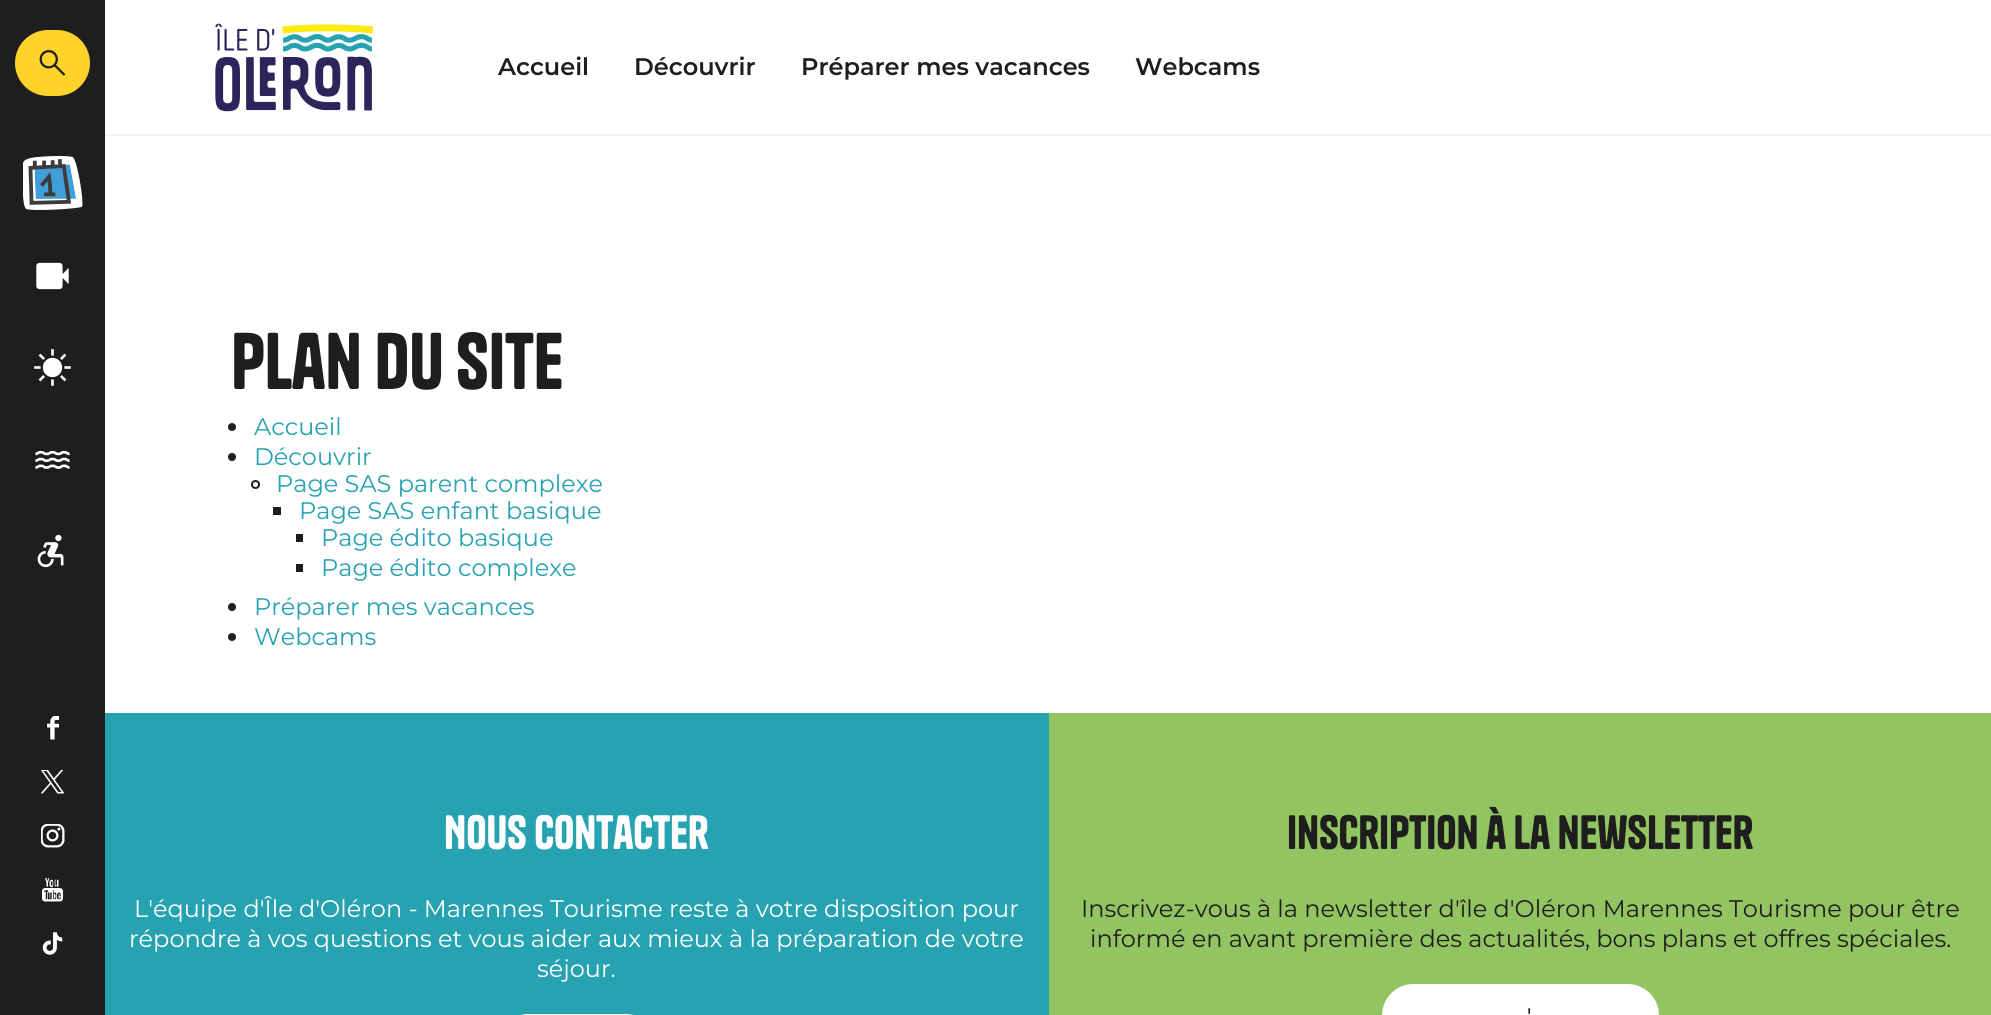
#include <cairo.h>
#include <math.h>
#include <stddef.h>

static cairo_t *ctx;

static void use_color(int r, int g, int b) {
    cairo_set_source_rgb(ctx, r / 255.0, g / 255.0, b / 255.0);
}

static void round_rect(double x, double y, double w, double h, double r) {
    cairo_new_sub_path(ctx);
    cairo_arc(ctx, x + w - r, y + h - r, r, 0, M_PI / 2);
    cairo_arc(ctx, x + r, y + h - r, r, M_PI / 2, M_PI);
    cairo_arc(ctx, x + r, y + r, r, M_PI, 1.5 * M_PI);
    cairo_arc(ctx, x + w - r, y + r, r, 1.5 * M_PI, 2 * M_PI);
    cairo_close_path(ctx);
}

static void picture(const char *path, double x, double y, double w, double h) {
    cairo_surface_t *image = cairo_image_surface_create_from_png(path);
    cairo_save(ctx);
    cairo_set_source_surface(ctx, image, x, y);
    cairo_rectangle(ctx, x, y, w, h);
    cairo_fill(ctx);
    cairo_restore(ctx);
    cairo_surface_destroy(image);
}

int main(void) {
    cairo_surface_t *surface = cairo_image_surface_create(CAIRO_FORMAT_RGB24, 1991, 1015);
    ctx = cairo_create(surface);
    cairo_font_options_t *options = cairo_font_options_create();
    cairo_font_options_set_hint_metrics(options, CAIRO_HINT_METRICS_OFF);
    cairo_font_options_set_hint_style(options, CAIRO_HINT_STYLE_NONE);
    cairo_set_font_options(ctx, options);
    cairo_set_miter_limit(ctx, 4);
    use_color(255, 255, 255);
    cairo_paint(ctx);
    use_color(30, 30, 30);
    cairo_rectangle(ctx, 0, 0, 105, 1015);
    cairo_fill(ctx);
    use_color(255, 211, 42);
    round_rect(15, 30, 75, 66, 33);
    cairo_fill(ctx);
    picture("img1.png", 39, 50, 27, 26);
    picture("img2.png", 23, 156, 60, 54);
    picture("img3.png", 36, 262, 33, 28);
    picture("img4.png", 34, 349, 37, 37);
    picture("img5.png", 35, 450, 35, 19);
    picture("img6.png", 37, 534, 27, 34);
    picture("img7.png", 47, 716, 12, 24);
    picture("img8.png", 41, 770, 24, 24);
    picture("img9.png", 41, 824, 24, 24);
    picture("img10.png", 42, 878, 21, 24);
    picture("img11.png", 42, 932, 21, 23);
    use_color(244, 244, 244);
    cairo_rectangle(ctx, 105, 134, 1886, 2);
    cairo_fill(ctx);
    picture("img12.png", 215, 23, 159, 89);
    cairo_select_font_face(ctx, "Montserrat SemiBold", CAIRO_FONT_SLANT_NORMAL, CAIRO_FONT_WEIGHT_NORMAL);
    cairo_set_font_size(ctx, 24);
    use_color(30, 30, 30);
    cairo_move_to(ctx, 498, 75);
    cairo_show_text(ctx, "Accueil");
    cairo_move_to(ctx, 634, 75);
    cairo_show_text(ctx, "Découvrir");
    cairo_move_to(ctx, 801, 75);
    cairo_show_text(ctx, "Préparer mes vacances");
    cairo_move_to(ctx, 1135, 75);
    cairo_show_text(ctx, "Webcams");
    cairo_select_font_face(ctx, "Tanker", CAIRO_FONT_SLANT_NORMAL, CAIRO_FONT_WEIGHT_NORMAL);
    cairo_set_font_size(ctx, 75);
    cairo_move_to(ctx, 231, 389);
    cairo_show_text(ctx, "Plan du site");
    cairo_new_path(ctx);
    cairo_arc(ctx, 232, 427, 4, 0, 2 * M_PI);
    cairo_fill(ctx);
    cairo_select_font_face(ctx, "Montserrat", CAIRO_FONT_SLANT_NORMAL, CAIRO_FONT_WEIGHT_NORMAL);
    cairo_set_font_size(ctx, 24);
    use_color(38, 162, 177);
    cairo_move_to(ctx, 254, 435);
    cairo_show_text(ctx, "Accueil");
    use_color(30, 30, 30);
    cairo_new_path(ctx);
    cairo_arc(ctx, 232, 457, 4, 0, 2 * M_PI);
    cairo_fill(ctx);
    use_color(38, 162, 177);
    cairo_move_to(ctx, 254, 465);
    cairo_show_text(ctx, "Découvrir");
    cairo_new_path(ctx);
    cairo_arc(ctx, 255.5, 484.5, 3.5, 0, 2 * M_PI);
    use_color(30, 30, 30);
    cairo_stroke(ctx);
    use_color(38, 162, 177);
    cairo_move_to(ctx, 276, 492);
    cairo_show_text(ctx, "Page SAS parent complexe");
    use_color(30, 30, 30);
    cairo_rectangle(ctx, 273, 507, 8, 8);
    cairo_fill(ctx);
    use_color(38, 162, 177);
    cairo_move_to(ctx, 299, 519);
    cairo_show_text(ctx, "Page SAS enfant basique");
    use_color(30, 30, 30);
    cairo_rectangle(ctx, 296, 534, 7, 8);
    cairo_fill(ctx);
    use_color(38, 162, 177);
    cairo_move_to(ctx, 321, 546);
    cairo_show_text(ctx, "Page édito basique");
    use_color(30, 30, 30);
    cairo_rectangle(ctx, 296, 564, 7, 8);
    cairo_fill(ctx);
    use_color(38, 162, 177);
    cairo_move_to(ctx, 321, 576);
    cairo_show_text(ctx, "Page édito complexe");
    use_color(30, 30, 30);
    cairo_new_path(ctx);
    cairo_arc(ctx, 232, 607, 4, 0, 2 * M_PI);
    cairo_fill(ctx);
    use_color(38, 162, 177);
    cairo_move_to(ctx, 254, 615);
    cairo_show_text(ctx, "Préparer mes vacances");
    use_color(30, 30, 30);
    cairo_new_path(ctx);
    cairo_arc(ctx, 232, 637, 4, 0, 2 * M_PI);
    cairo_fill(ctx);
    use_color(38, 162, 177);
    cairo_move_to(ctx, 254, 645);
    cairo_show_text(ctx, "Webcams");
    cairo_rectangle(ctx, 105, 713, 944, 302);
    cairo_fill(ctx);
    cairo_select_font_face(ctx, "Tanker", CAIRO_FONT_SLANT_NORMAL, CAIRO_FONT_WEIGHT_NORMAL);
    cairo_set_font_size(ctx, 45);
    use_color(255, 255, 255);
    cairo_move_to(ctx, 444, 849);
    cairo_show_text(ctx, "Nous contacter");
    cairo_select_font_face(ctx, "Montserrat", CAIRO_FONT_SLANT_NORMAL, CAIRO_FONT_WEIGHT_NORMAL);
    cairo_set_font_size(ctx, 24);
    cairo_move_to(ctx, 134, 917);
    cairo_show_text(ctx, "L'équipe d'Île d'Oléron - Marennes Tourisme reste à votre disposition pour");
    cairo_move_to(ctx, 129, 947);
    cairo_show_text(ctx, "répondre à vos questions et vous aider aux mieux à la préparation de votre");
    cairo_move_to(ctx, 537, 977);
    cairo_show_text(ctx, "séjour.");
    round_rect(497, 1014, 160, 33, 31.5);
    cairo_fill(ctx);
    use_color(147, 196, 98);
    cairo_rectangle(ctx, 1049, 713, 942, 302);
    cairo_fill(ctx);
    cairo_select_font_face(ctx, "Tanker", CAIRO_FONT_SLANT_NORMAL, CAIRO_FONT_WEIGHT_NORMAL);
    cairo_set_font_size(ctx, 45);
    use_color(30, 30, 30);
    cairo_move_to(ctx, 1287, 849);
    cairo_show_text(ctx, "Inscription à la newsletter");
    cairo_select_font_face(ctx, "Montserrat", CAIRO_FONT_SLANT_NORMAL, CAIRO_FONT_WEIGHT_NORMAL);
    cairo_set_font_size(ctx, 24);
    cairo_move_to(ctx, 1081, 917);
    cairo_show_text(ctx, "Inscrivez-vous à la newsletter d'île d'Oléron Marennes Tourisme pour être");
    cairo_move_to(ctx, 1090, 947);
    cairo_show_text(ctx, "informé en avant première des actualités, bons plans et offres spéciales.");
    use_color(255, 255, 255);
    round_rect(1382, 984, 277, 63, 31.5);
    cairo_fill(ctx);
    cairo_select_font_face(ctx, "Montserrat Medium", CAIRO_FONT_SLANT_NORMAL, CAIRO_FONT_WEIGHT_NORMAL);
    cairo_set_font_size(ctx, 21);
    use_color(30, 30, 30);
    cairo_move_to(ctx, 1527, 1023);
    cairo_show_text(ctx, "'");
    cairo_surface_write_to_png(surface, "result.png");
    cairo_font_options_destroy(options);
    cairo_destroy(ctx);
    cairo_surface_destroy(surface);
    return 0;
}
